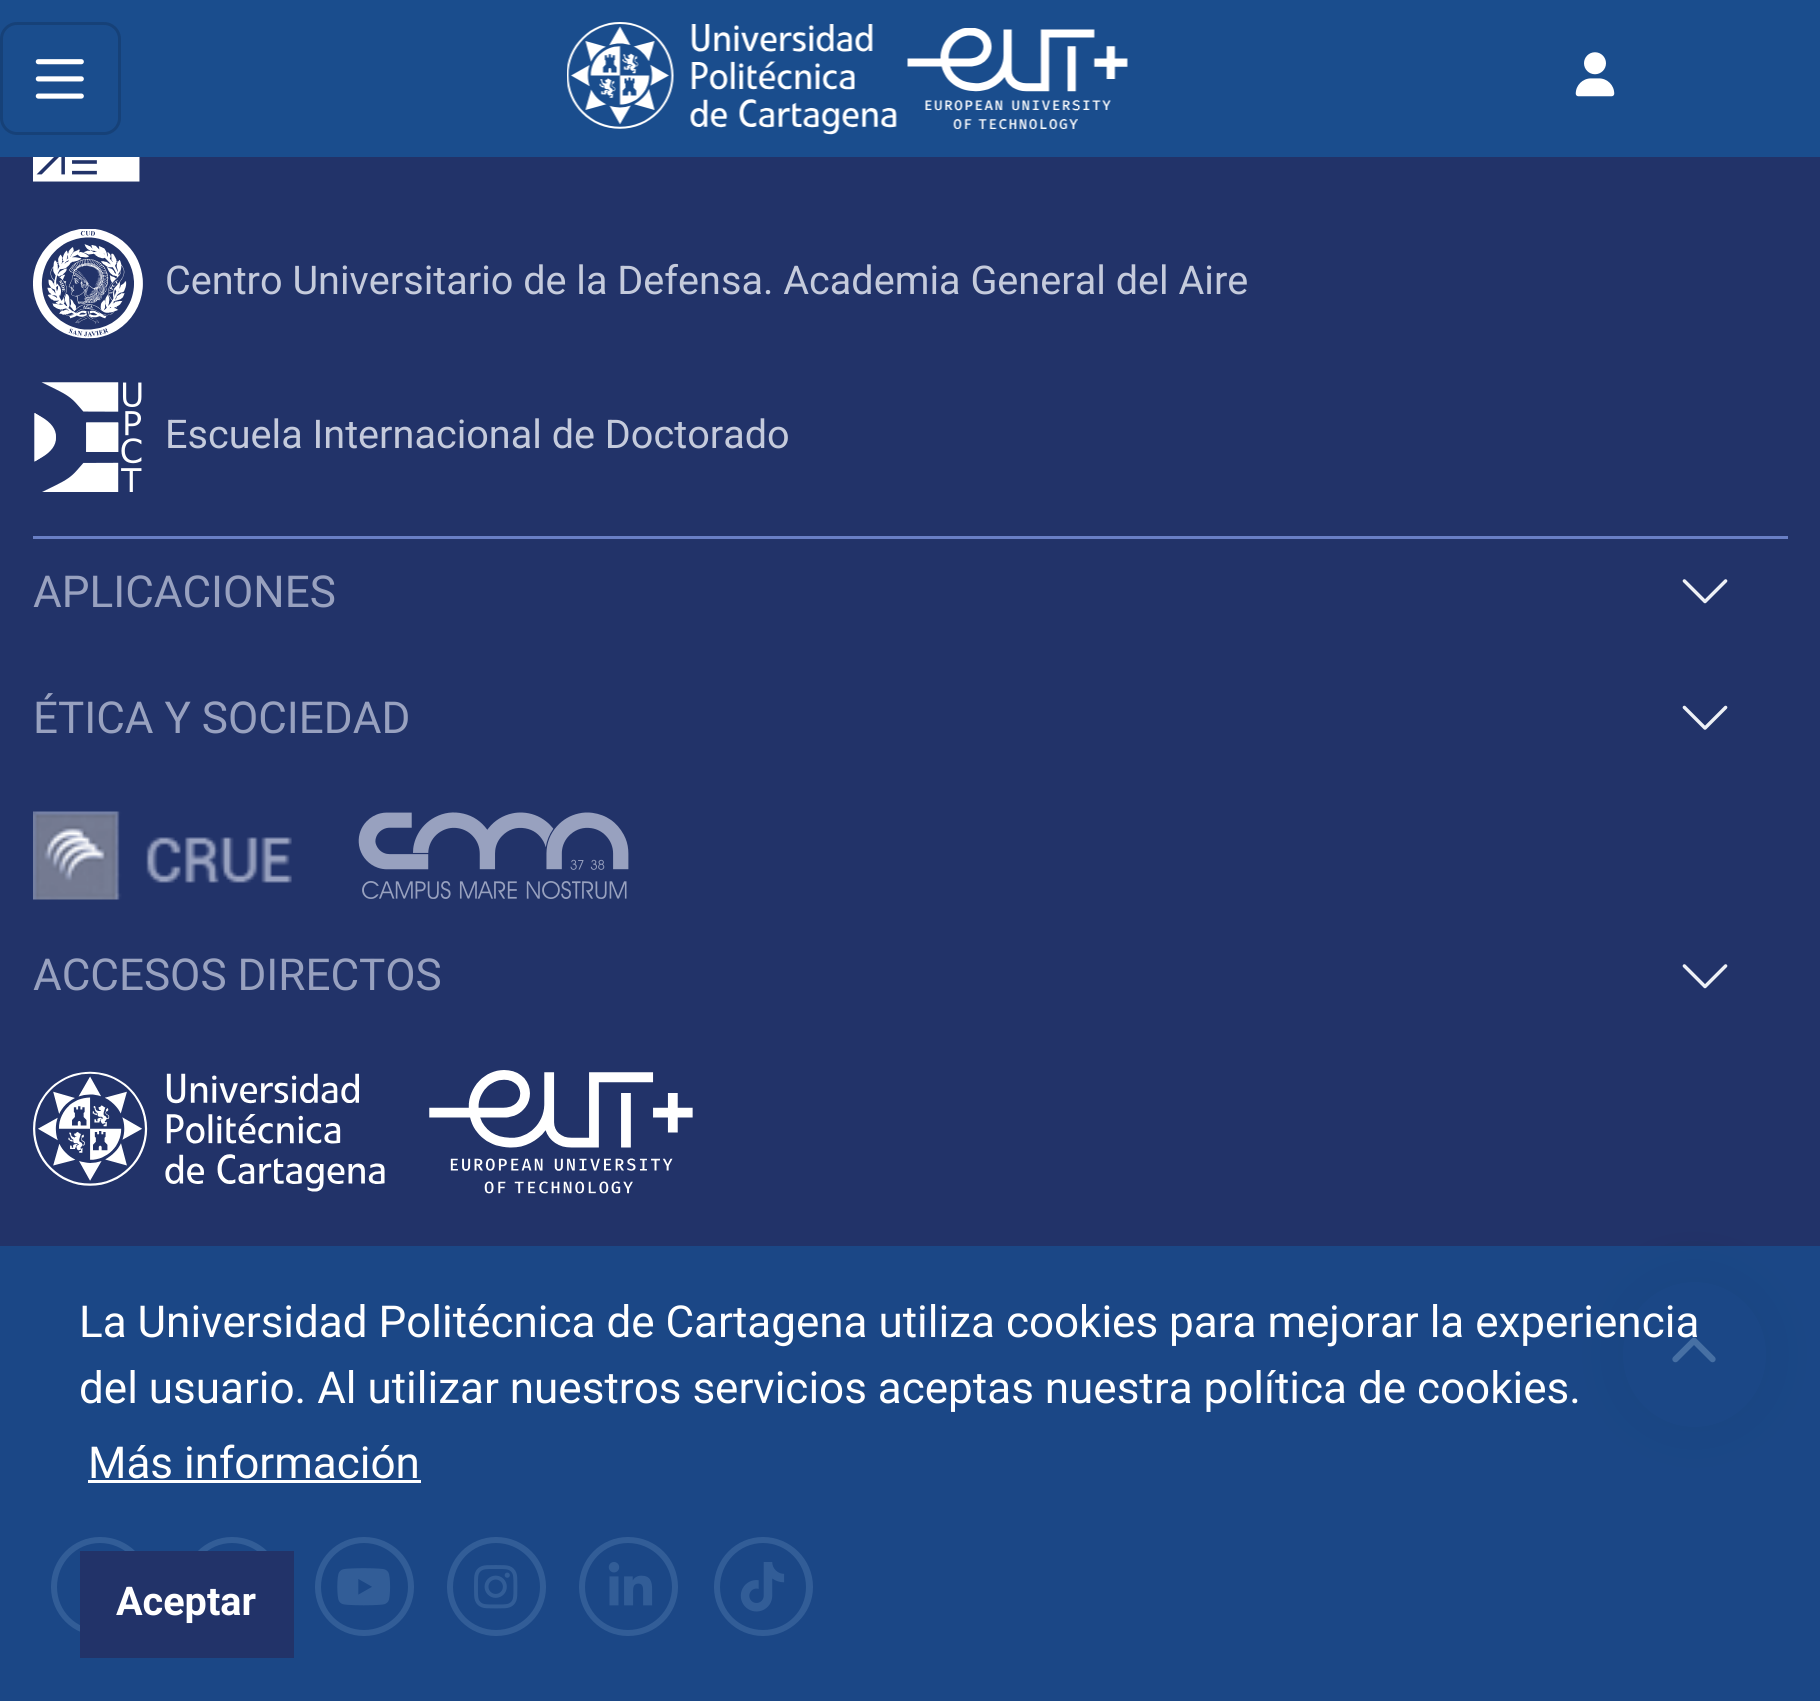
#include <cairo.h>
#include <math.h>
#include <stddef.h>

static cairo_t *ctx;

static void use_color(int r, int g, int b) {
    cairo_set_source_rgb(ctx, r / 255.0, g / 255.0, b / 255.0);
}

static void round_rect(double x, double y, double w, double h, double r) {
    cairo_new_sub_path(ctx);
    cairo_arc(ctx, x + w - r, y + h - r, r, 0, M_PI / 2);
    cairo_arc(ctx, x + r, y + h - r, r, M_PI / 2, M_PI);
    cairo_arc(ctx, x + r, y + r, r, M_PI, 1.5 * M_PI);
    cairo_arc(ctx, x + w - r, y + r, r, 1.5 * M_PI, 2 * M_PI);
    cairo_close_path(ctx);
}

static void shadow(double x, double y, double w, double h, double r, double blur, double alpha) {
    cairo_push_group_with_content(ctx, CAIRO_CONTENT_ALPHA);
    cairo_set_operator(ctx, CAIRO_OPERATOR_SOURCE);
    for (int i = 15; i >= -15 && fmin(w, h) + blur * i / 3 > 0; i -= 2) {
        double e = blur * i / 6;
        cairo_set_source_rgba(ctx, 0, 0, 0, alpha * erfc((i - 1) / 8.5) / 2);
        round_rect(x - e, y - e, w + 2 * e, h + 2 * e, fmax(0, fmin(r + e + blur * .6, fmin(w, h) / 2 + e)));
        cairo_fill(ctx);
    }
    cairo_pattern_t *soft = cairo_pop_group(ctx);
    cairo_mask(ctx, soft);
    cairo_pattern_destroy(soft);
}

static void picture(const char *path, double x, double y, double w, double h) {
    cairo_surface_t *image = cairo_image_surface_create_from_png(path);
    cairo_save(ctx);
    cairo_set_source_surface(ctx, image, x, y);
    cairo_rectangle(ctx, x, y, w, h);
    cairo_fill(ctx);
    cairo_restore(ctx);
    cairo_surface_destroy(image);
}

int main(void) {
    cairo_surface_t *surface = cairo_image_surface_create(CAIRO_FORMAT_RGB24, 1820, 1701);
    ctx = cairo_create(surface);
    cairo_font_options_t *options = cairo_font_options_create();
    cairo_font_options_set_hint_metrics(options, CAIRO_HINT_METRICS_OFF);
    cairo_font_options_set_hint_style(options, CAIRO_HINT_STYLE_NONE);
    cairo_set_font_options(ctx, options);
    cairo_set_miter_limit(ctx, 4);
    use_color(34, 51, 105);
    cairo_paint(ctx);
    use_color(26, 77, 141);
    cairo_rectangle(ctx, 0, 0, 1820, 157);
    cairo_fill(ctx);
    round_rect(1.5, 23.5, 118, 110, 15.5);
    use_color(22, 65, 120);
    cairo_set_line_width(ctx, 3);
    cairo_stroke(ctx);
    picture("img1.png", 35, 59, 49, 40);
    picture("img2.png", 567, 22, 330, 113);
    picture("img3.png", 907, 28, 221, 101);
    picture("img4.png", 1575, 52, 40, 45);
    use_color(0, 0, 0);
    shadow(1623, 1282, 143, 145, 71.5, 27.5, 0.32);
    use_color(34, 51, 105);
    round_rect(1623, 1282, 143, 145, 71.5);
    cairo_fill(ctx);
    picture("img5.png", 1672, 1337, 44, 26);
    picture("img6.png", 33, 157, 107, 25);
    picture("img7.png", 33, 229, 110, 110);
    cairo_select_font_face(ctx, "Roboto", CAIRO_FONT_SLANT_NORMAL, CAIRO_FONT_WEIGHT_NORMAL);
    cairo_set_font_size(ctx, 39.6);
    use_color(197, 203, 220);
    cairo_move_to(ctx, 165, 294);
    cairo_show_text(ctx, "Centro Universitario de la Defensa. Academia General del Aire");
    picture("img8.png", 34, 382, 108, 110);
    cairo_move_to(ctx, 165, 448);
    cairo_show_text(ctx, "Escuela Internacional de Doctorado");
    use_color(105, 127, 197);
    cairo_rectangle(ctx, 33, 536, 1755, 3);
    cairo_fill(ctx);
    cairo_set_font_size(ctx, 44);
    use_color(152, 161, 191);
    cairo_move_to(ctx, 33, 607);
    cairo_show_text(ctx, "APLICACIONES");
    picture("img9.png", 1682, 579, 46, 25);
    cairo_move_to(ctx, 33, 733);
    cairo_show_text(ctx, "ÉTICA Y SOCIEDAD");
    picture("img10.png", 1682, 705, 46, 25);
    picture("img11.png", 33, 811, 259, 89);
    picture("img12.png", 358, 812, 271, 87);
    cairo_move_to(ctx, 33, 990);
    cairo_show_text(ctx, "ACCESOS DIRECTOS");
    picture("img9.png", 1682, 964, 46, 25);
    picture("img13.png", 33, 1071, 352, 121);
    picture("img14.png", 429, 1070, 264, 124);
    cairo_new_path(ctx);
    cairo_move_to(ctx, 100, 1543);
    cairo_curve_to(ctx, 124, 1543, 144, 1563, 144, 1587);
    cairo_curve_to(ctx, 144, 1611, 124, 1630, 100, 1630);
    cairo_curve_to(ctx, 76, 1630, 57, 1611, 57, 1587);
    cairo_curve_to(ctx, 57, 1563, 76, 1543, 100, 1543);
    cairo_close_path(ctx);
    cairo_move_to(ctx, 100, 1636);
    cairo_curve_to(ctx, 128, 1636, 150, 1614, 150, 1587);
    cairo_curve_to(ctx, 150, 1559, 128, 1537, 100, 1537);
    cairo_curve_to(ctx, 73, 1537, 51, 1559, 51, 1587);
    cairo_curve_to(ctx, 51, 1614, 73, 1636, 100, 1636);
    cairo_close_path(ctx);
    cairo_fill(ctx);
    cairo_new_path(ctx);
    cairo_move_to(ctx, 232, 1543);
    cairo_curve_to(ctx, 256, 1543, 276, 1563, 276, 1587);
    cairo_curve_to(ctx, 276, 1611, 256, 1630, 232, 1630);
    cairo_curve_to(ctx, 208, 1630, 189, 1611, 189, 1587);
    cairo_curve_to(ctx, 189, 1563, 208, 1543, 232, 1543);
    cairo_close_path(ctx);
    cairo_move_to(ctx, 232, 1636);
    cairo_curve_to(ctx, 260, 1636, 282, 1614, 282, 1587);
    cairo_curve_to(ctx, 282, 1559, 260, 1537, 232, 1537);
    cairo_curve_to(ctx, 205, 1537, 183, 1559, 183, 1587);
    cairo_curve_to(ctx, 183, 1614, 205, 1636, 232, 1636);
    cairo_close_path(ctx);
    cairo_fill(ctx);
    cairo_new_path(ctx);
    cairo_move_to(ctx, 364, 1543);
    cairo_curve_to(ctx, 388, 1543, 408, 1563, 408, 1587);
    cairo_curve_to(ctx, 408, 1611, 388, 1630, 364, 1630);
    cairo_curve_to(ctx, 340, 1630, 321, 1611, 321, 1587);
    cairo_curve_to(ctx, 321, 1563, 340, 1543, 364, 1543);
    cairo_close_path(ctx);
    cairo_move_to(ctx, 364, 1636);
    cairo_curve_to(ctx, 392, 1636, 414, 1614, 414, 1587);
    cairo_curve_to(ctx, 414, 1559, 392, 1537, 364, 1537);
    cairo_curve_to(ctx, 337, 1537, 315, 1559, 315, 1587);
    cairo_curve_to(ctx, 315, 1614, 337, 1636, 364, 1636);
    cairo_close_path(ctx);
    cairo_fill(ctx);
    picture("img15.png", 337, 1568, 54, 38);
    cairo_new_path(ctx);
    cairo_move_to(ctx, 496, 1543);
    cairo_curve_to(ctx, 520, 1543, 540, 1563, 540, 1587);
    cairo_curve_to(ctx, 540, 1611, 520, 1630, 496, 1630);
    cairo_curve_to(ctx, 472, 1630, 453, 1611, 453, 1587);
    cairo_curve_to(ctx, 453, 1563, 472, 1543, 496, 1543);
    cairo_close_path(ctx);
    cairo_move_to(ctx, 496, 1636);
    cairo_curve_to(ctx, 524, 1636, 546, 1614, 546, 1587);
    cairo_curve_to(ctx, 546, 1559, 524, 1537, 496, 1537);
    cairo_curve_to(ctx, 469, 1537, 447, 1559, 447, 1587);
    cairo_curve_to(ctx, 447, 1614, 469, 1636, 496, 1636);
    cairo_close_path(ctx);
    cairo_fill(ctx);
    picture("img16.png", 474, 1565, 44, 44);
    cairo_new_path(ctx);
    cairo_move_to(ctx, 628, 1543);
    cairo_curve_to(ctx, 652, 1543, 672, 1563, 672, 1587);
    cairo_curve_to(ctx, 672, 1611, 652, 1630, 628, 1630);
    cairo_curve_to(ctx, 604, 1630, 585, 1611, 585, 1587);
    cairo_curve_to(ctx, 585, 1563, 604, 1543, 628, 1543);
    cairo_close_path(ctx);
    cairo_move_to(ctx, 628, 1636);
    cairo_curve_to(ctx, 656, 1636, 678, 1614, 678, 1587);
    cairo_curve_to(ctx, 678, 1559, 656, 1537, 628, 1537);
    cairo_curve_to(ctx, 601, 1537, 579, 1559, 579, 1587);
    cairo_curve_to(ctx, 579, 1614, 601, 1636, 628, 1636);
    cairo_close_path(ctx);
    cairo_fill(ctx);
    picture("img17.png", 608, 1562, 45, 44);
    cairo_new_path(ctx);
    cairo_move_to(ctx, 763, 1543);
    cairo_curve_to(ctx, 787, 1543, 806, 1563, 806, 1587);
    cairo_curve_to(ctx, 806, 1611, 787, 1630, 763, 1630);
    cairo_curve_to(ctx, 739, 1630, 720, 1611, 720, 1587);
    cairo_curve_to(ctx, 720, 1563, 739, 1543, 763, 1543);
    cairo_close_path(ctx);
    cairo_move_to(ctx, 763, 1636);
    cairo_curve_to(ctx, 790, 1636, 813, 1614, 813, 1587);
    cairo_curve_to(ctx, 813, 1559, 790, 1537, 763, 1537);
    cairo_curve_to(ctx, 736, 1537, 714, 1559, 714, 1587);
    cairo_curve_to(ctx, 714, 1614, 736, 1636, 763, 1636);
    cairo_close_path(ctx);
    cairo_fill(ctx);
    picture("img18.png", 740, 1562, 45, 50);
    cairo_set_source_rgba(ctx, 0.102, 0.302, 0.553, 0.8);
    cairo_rectangle(ctx, 0, 1246, 1820, 455);
    cairo_fill(ctx);
    use_color(255, 255, 255);
    cairo_move_to(ctx, 79, 1337);
    cairo_show_text(ctx, "La Universidad Politécnica de Cartagena utiliza cookies para mejorar la experiencia");
    cairo_move_to(ctx, 79, 1403);
    cairo_show_text(ctx, "del usuario. Al utilizar nuestros servicios aceptas nuestra política de cookies.");
    cairo_move_to(ctx, 88, 1478);
    cairo_show_text(ctx, "Más información");
    cairo_rectangle(ctx, 88, 1480, 333, 3);
    cairo_fill(ctx);
    use_color(34, 51, 105);
    cairo_rectangle(ctx, 80, 1551, 214, 107);
    cairo_fill(ctx);
    cairo_select_font_face(ctx, "Roboto", CAIRO_FONT_SLANT_NORMAL, CAIRO_FONT_WEIGHT_BOLD);
    cairo_set_font_size(ctx, 39.6);
    use_color(255, 255, 255);
    cairo_move_to(ctx, 116, 1615);
    cairo_show_text(ctx, "Aceptar");
    cairo_surface_write_to_png(surface, "result.png");
    cairo_font_options_destroy(options);
    cairo_destroy(ctx);
    cairo_surface_destroy(surface);
    return 0;
}
